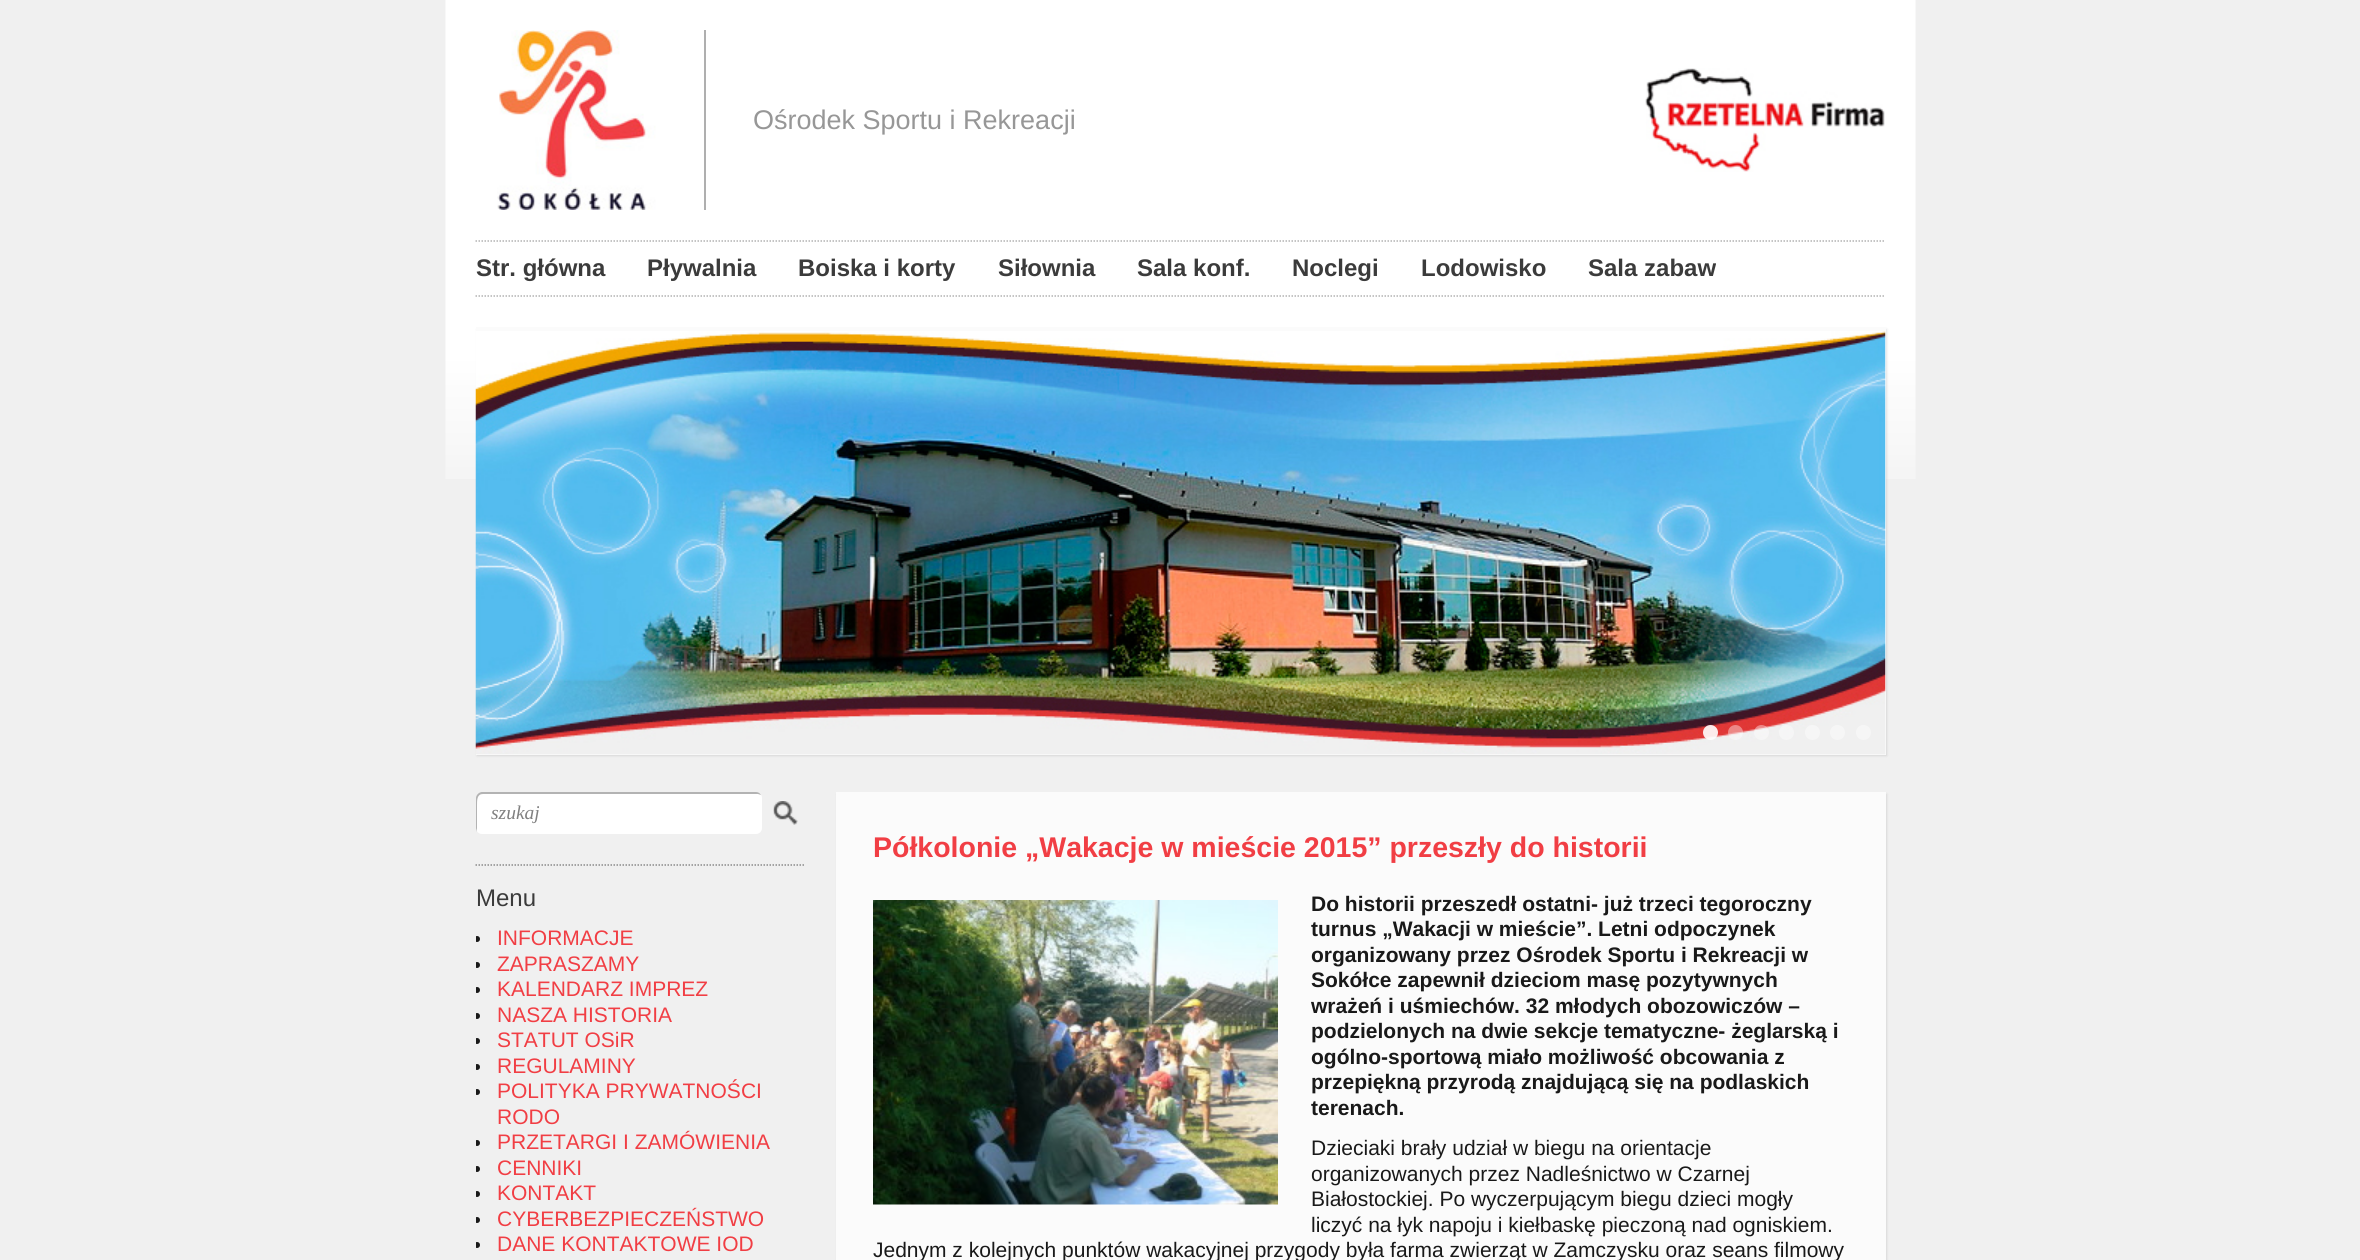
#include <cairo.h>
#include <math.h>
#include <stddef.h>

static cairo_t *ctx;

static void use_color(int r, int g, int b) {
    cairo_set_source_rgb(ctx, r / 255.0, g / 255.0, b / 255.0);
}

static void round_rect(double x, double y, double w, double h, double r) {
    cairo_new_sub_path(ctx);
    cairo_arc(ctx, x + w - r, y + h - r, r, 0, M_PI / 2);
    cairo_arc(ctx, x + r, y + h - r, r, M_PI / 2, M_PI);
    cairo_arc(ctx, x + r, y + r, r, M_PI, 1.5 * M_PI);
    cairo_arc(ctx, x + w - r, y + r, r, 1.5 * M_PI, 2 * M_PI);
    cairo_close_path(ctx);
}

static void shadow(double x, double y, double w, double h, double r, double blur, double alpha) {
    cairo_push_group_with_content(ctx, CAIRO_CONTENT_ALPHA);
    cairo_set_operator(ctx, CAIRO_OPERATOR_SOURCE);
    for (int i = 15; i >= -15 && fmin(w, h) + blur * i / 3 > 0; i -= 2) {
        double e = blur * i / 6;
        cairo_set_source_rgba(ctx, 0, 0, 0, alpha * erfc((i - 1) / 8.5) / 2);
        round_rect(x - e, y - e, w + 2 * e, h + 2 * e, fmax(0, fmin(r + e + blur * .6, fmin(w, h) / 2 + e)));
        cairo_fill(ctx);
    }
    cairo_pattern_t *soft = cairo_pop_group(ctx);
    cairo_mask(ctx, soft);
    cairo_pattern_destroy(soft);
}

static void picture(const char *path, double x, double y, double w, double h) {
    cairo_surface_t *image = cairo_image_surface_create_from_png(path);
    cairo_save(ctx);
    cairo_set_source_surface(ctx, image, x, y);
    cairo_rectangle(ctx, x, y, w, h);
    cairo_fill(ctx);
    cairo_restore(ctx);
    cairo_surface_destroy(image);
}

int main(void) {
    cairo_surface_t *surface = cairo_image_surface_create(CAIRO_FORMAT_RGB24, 2360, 1260);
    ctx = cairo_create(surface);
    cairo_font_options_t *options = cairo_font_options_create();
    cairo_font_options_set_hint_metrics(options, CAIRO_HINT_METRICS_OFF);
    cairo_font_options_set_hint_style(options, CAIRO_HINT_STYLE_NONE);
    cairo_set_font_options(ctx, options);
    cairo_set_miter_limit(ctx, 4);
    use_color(240, 240, 240);
    cairo_paint(ctx);
    picture("img1.png", 445, 0, 1471, 479);
    picture("img2.png", 497, 30, 159, 180);
    use_color(175, 175, 175);
    cairo_rectangle(ctx, 704, 30, 2, 180);
    cairo_fill(ctx);
    cairo_select_font_face(ctx, "Liberation Sans", CAIRO_FONT_SLANT_NORMAL, CAIRO_FONT_WEIGHT_NORMAL);
    cairo_set_font_size(ctx, 27);
    use_color(151, 151, 151);
    cairo_move_to(ctx, 753, 129);
    cairo_show_text(ctx, "Ośrodek Sportu i Rekreacji");
    picture("img3.png", 1645, 68, 240, 104);
    cairo_new_path(ctx);
    cairo_move_to(ctx, 475.5, 241);
    cairo_line_to(ctx, 1885.5, 241);
    use_color(178, 178, 178);
    cairo_set_line_width(ctx, 1.5);
    cairo_set_dash(ctx, (double[]){1.5, 1.5}, 2, 0);
    cairo_stroke(ctx);
    cairo_new_path(ctx);
    cairo_move_to(ctx, 475.5, 296);
    cairo_line_to(ctx, 1885.5, 296);
    cairo_stroke(ctx);
    cairo_select_font_face(ctx, "Liberation Sans", CAIRO_FONT_SLANT_NORMAL, CAIRO_FONT_WEIGHT_BOLD);
    cairo_set_font_size(ctx, 24);
    use_color(59, 59, 59);
    cairo_move_to(ctx, 476, 276);
    cairo_show_text(ctx, "Str. główna");
    cairo_move_to(ctx, 647, 276);
    cairo_show_text(ctx, "Pływalnia");
    cairo_move_to(ctx, 798, 276);
    cairo_show_text(ctx, "Boiska i korty");
    cairo_move_to(ctx, 998, 276);
    cairo_show_text(ctx, "Siłownia");
    cairo_move_to(ctx, 1137, 276);
    cairo_show_text(ctx, "Sala konf.");
    cairo_move_to(ctx, 1292, 276);
    cairo_show_text(ctx, "Noclegi");
    cairo_move_to(ctx, 1421, 276);
    cairo_show_text(ctx, "Lodowisko");
    cairo_move_to(ctx, 1588, 276);
    cairo_show_text(ctx, "Sala zabaw");
    use_color(0, 0, 0);
    shadow(477, 329, 1410, 427, 0, 1, 0.1);
    use_color(251, 251, 251);
    cairo_rectangle(ctx, 476, 327, 1410, 428);
    cairo_fill(ctx);
    picture("img4.png", 475, 331, 1411, 424);
    cairo_set_source_rgba(ctx, 1, 1, 1, 0.9);
    cairo_arc(ctx, 1710.5, 732.5, 7.5, 0, 2 * M_PI);
    cairo_fill(ctx);
    cairo_set_source_rgba(ctx, 1, 1, 1, 0.4);
    cairo_arc(ctx, 1735.5, 732.5, 7.5, 0, 2 * M_PI);
    cairo_fill(ctx);
    cairo_arc(ctx, 1761.5, 732.5, 7.5, 0, 2 * M_PI);
    cairo_fill(ctx);
    cairo_arc(ctx, 1786.5, 732.5, 7.5, 0, 2 * M_PI);
    cairo_fill(ctx);
    use_color(246, 246, 246);
    cairo_arc(ctx, 1812.5, 732.5, 7.5, 0, 2 * M_PI);
    cairo_fill(ctx);
    cairo_arc(ctx, 1837.5, 732.5, 7.5, 0, 2 * M_PI);
    cairo_fill(ctx);
    cairo_arc(ctx, 1863.5, 732.5, 7.5, 0, 2 * M_PI);
    cairo_fill(ctx);
    use_color(255, 255, 255);
    round_rect(476, 792, 286, 42, 6);
    cairo_fill(ctx);
    cairo_set_source_rgba(ctx, 0, 0, 0, 0.3);
    cairo_new_path(ctx);
    cairo_move_to(ctx, 483, 794);
    cairo_line_to(ctx, 758, 794);
    cairo_line_to(ctx, 761, 795);
    cairo_curve_to(ctx, 760, 793, 758, 792, 756, 792);
    cairo_line_to(ctx, 482, 792);
    cairo_curve_to(ctx, 479, 792, 476, 795, 476, 798);
    cairo_line_to(ctx, 476, 828);
    cairo_curve_to(ctx, 476, 829, 477, 831, 477, 832);
    cairo_line_to(ctx, 477, 805);
    cairo_curve_to(ctx, 477, 800, 477, 794, 483, 794);
    cairo_close_path(ctx);
    cairo_fill(ctx);
    cairo_select_font_face(ctx, "Liberation Serif", CAIRO_FONT_SLANT_ITALIC, CAIRO_FONT_WEIGHT_NORMAL);
    cairo_set_font_size(ctx, 19.5);
    use_color(128, 128, 128);
    cairo_move_to(ctx, 491, 819);
    cairo_show_text(ctx, "szukaj");
    picture("img5.png", 773, 801, 25, 24);
    cairo_new_path(ctx);
    cairo_move_to(ctx, 475.5, 865);
    cairo_line_to(ctx, 805.5, 865);
    use_color(138, 138, 138);
    cairo_stroke(ctx);
    cairo_select_font_face(ctx, "Liberation Sans", CAIRO_FONT_SLANT_NORMAL, CAIRO_FONT_WEIGHT_NORMAL);
    cairo_set_font_size(ctx, 24);
    use_color(59, 59, 59);
    cairo_move_to(ctx, 476, 906);
    cairo_show_text(ctx, "Menu");
    cairo_save(ctx);
    cairo_rectangle(ctx, 476, 792, 330, 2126);
    cairo_clip(ctx);
    use_color(25, 25, 25);
    cairo_arc(ctx, 477, 939, 3, 0, 2 * M_PI);
    cairo_fill(ctx);
    cairo_restore(ctx);
    cairo_set_font_size(ctx, 21);
    use_color(241, 62, 68);
    cairo_move_to(ctx, 497, 945);
    cairo_show_text(ctx, "INFORMACJE");
    cairo_save(ctx);
    cairo_rectangle(ctx, 476, 792, 330, 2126);
    cairo_clip(ctx);
    use_color(25, 25, 25);
    cairo_arc(ctx, 477, 965, 3, 0, 2 * M_PI);
    cairo_fill(ctx);
    cairo_restore(ctx);
    cairo_move_to(ctx, 497, 971);
    cairo_show_text(ctx, "ZAPRASZAMY");
    cairo_save(ctx);
    cairo_rectangle(ctx, 476, 792, 330, 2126);
    cairo_clip(ctx);
    use_color(25, 25, 25);
    cairo_arc(ctx, 477, 990, 3, 0, 2 * M_PI);
    cairo_fill(ctx);
    cairo_restore(ctx);
    cairo_move_to(ctx, 497, 996);
    cairo_show_text(ctx, "KALENDARZ IMPREZ");
    cairo_save(ctx);
    cairo_rectangle(ctx, 476, 792, 330, 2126);
    cairo_clip(ctx);
    use_color(25, 25, 25);
    cairo_arc(ctx, 477, 1016, 3, 0, 2 * M_PI);
    cairo_fill(ctx);
    cairo_restore(ctx);
    cairo_move_to(ctx, 497, 1022);
    cairo_show_text(ctx, "NASZA HISTORIA");
    cairo_save(ctx);
    cairo_rectangle(ctx, 476, 792, 330, 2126);
    cairo_clip(ctx);
    use_color(25, 25, 25);
    cairo_arc(ctx, 477, 1041, 3, 0, 2 * M_PI);
    cairo_fill(ctx);
    cairo_restore(ctx);
    cairo_move_to(ctx, 497, 1047);
    cairo_show_text(ctx, "STATUT OSiR");
    cairo_save(ctx);
    cairo_rectangle(ctx, 476, 792, 330, 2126);
    cairo_clip(ctx);
    use_color(25, 25, 25);
    cairo_arc(ctx, 477, 1067, 3, 0, 2 * M_PI);
    cairo_fill(ctx);
    cairo_restore(ctx);
    cairo_move_to(ctx, 497, 1073);
    cairo_show_text(ctx, "REGULAMINY");
    cairo_save(ctx);
    cairo_rectangle(ctx, 476, 792, 330, 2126);
    cairo_clip(ctx);
    use_color(25, 25, 25);
    cairo_arc(ctx, 477, 1092, 3, 0, 2 * M_PI);
    cairo_fill(ctx);
    cairo_restore(ctx);
    cairo_move_to(ctx, 497, 1098);
    cairo_show_text(ctx, "POLITYKA PRYWATNOŚCI");
    cairo_move_to(ctx, 497, 1124);
    cairo_show_text(ctx, "RODO");
    cairo_save(ctx);
    cairo_rectangle(ctx, 476, 792, 330, 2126);
    cairo_clip(ctx);
    use_color(25, 25, 25);
    cairo_arc(ctx, 477, 1143, 3, 0, 2 * M_PI);
    cairo_fill(ctx);
    cairo_restore(ctx);
    cairo_move_to(ctx, 497, 1149);
    cairo_show_text(ctx, "PRZETARGI I ZAMÓWIENIA");
    cairo_save(ctx);
    cairo_rectangle(ctx, 476, 792, 330, 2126);
    cairo_clip(ctx);
    use_color(25, 25, 25);
    cairo_arc(ctx, 477, 1169, 3, 0, 2 * M_PI);
    cairo_fill(ctx);
    cairo_restore(ctx);
    cairo_move_to(ctx, 497, 1175);
    cairo_show_text(ctx, "CENNIKI");
    cairo_save(ctx);
    cairo_rectangle(ctx, 476, 792, 330, 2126);
    cairo_clip(ctx);
    use_color(25, 25, 25);
    cairo_arc(ctx, 477, 1194, 3, 0, 2 * M_PI);
    cairo_fill(ctx);
    cairo_restore(ctx);
    cairo_move_to(ctx, 497, 1200);
    cairo_show_text(ctx, "KONTAKT");
    cairo_save(ctx);
    cairo_rectangle(ctx, 476, 792, 330, 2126);
    cairo_clip(ctx);
    use_color(25, 25, 25);
    cairo_arc(ctx, 477, 1220, 3, 0, 2 * M_PI);
    cairo_fill(ctx);
    cairo_restore(ctx);
    cairo_move_to(ctx, 497, 1226);
    cairo_show_text(ctx, "CYBERBEZPIECZEŃSTWO");
    cairo_save(ctx);
    cairo_rectangle(ctx, 476, 792, 330, 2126);
    cairo_clip(ctx);
    use_color(25, 25, 25);
    cairo_arc(ctx, 477, 1245, 3, 0, 2 * M_PI);
    cairo_fill(ctx);
    cairo_restore(ctx);
    cairo_move_to(ctx, 497, 1251);
    cairo_show_text(ctx, "DANE KONTAKTOWE IOD");
    use_color(0, 0, 0);
    shadow(837, 794, 1050, 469, 0, 1, 0.1);
    use_color(251, 251, 251);
    cairo_rectangle(ctx, 836, 792, 1050, 468);
    cairo_fill(ctx);
    cairo_select_font_face(ctx, "Liberation Sans", CAIRO_FONT_SLANT_NORMAL, CAIRO_FONT_WEIGHT_BOLD);
    cairo_set_font_size(ctx, 28.5);
    use_color(241, 62, 68);
    cairo_move_to(ctx, 873, 857);
    cairo_show_text(ctx, "Półkolonie „Wakacje w mieście 2015” przeszły do historii");
    picture("img6.png", 873, 900, 405, 305);
    cairo_set_font_size(ctx, 21);
    use_color(25, 25, 25);
    cairo_move_to(ctx, 1311, 911);
    cairo_show_text(ctx, "Do historii przeszedł ostatni- już trzeci tegoroczny");
    cairo_move_to(ctx, 1311, 936);
    cairo_show_text(ctx, "turnus „Wakacji w mieście”. Letni odpoczynek");
    cairo_move_to(ctx, 1311, 962);
    cairo_show_text(ctx, "organizowany przez Ośrodek Sportu i Rekreacji w");
    cairo_move_to(ctx, 1311, 987);
    cairo_show_text(ctx, "Sokółce zapewnił dzieciom masę pozytywnych");
    cairo_move_to(ctx, 1311, 1013);
    cairo_show_text(ctx, "wrażeń i uśmiechów. 32 młodych obozowiczów –");
    cairo_move_to(ctx, 1311, 1038);
    cairo_show_text(ctx, "podzielonych na dwie sekcje tematyczne- żeglarską i");
    cairo_move_to(ctx, 1311, 1064);
    cairo_show_text(ctx, "ogólno-sportową miało możliwość obcowania z");
    cairo_move_to(ctx, 1311, 1089);
    cairo_show_text(ctx, "przepiękną przyrodą znajdującą się na podlaskich");
    cairo_move_to(ctx, 1311, 1115);
    cairo_show_text(ctx, "terenach.");
    cairo_select_font_face(ctx, "Liberation Sans", CAIRO_FONT_SLANT_NORMAL, CAIRO_FONT_WEIGHT_NORMAL);
    cairo_move_to(ctx, 1311, 1155);
    cairo_show_text(ctx, "Dzieciaki brały udział w biegu na orientacje");
    cairo_move_to(ctx, 1311, 1181);
    cairo_show_text(ctx, "organizowanych przez Nadleśnictwo w Czarnej");
    cairo_move_to(ctx, 1311, 1206);
    cairo_show_text(ctx, "Białostockiej. Po wyczerpującym biegu dzieci mogły");
    cairo_move_to(ctx, 1311, 1232);
    cairo_show_text(ctx, "liczyć na łyk napoju i kiełbaskę pieczoną nad ogniskiem.");
    cairo_move_to(ctx, 873, 1257);
    cairo_show_text(ctx, "Jednym z kolejnych punktów wakacyjnej przygody była farma zwierząt w Zamczysku oraz seans filmowy");
    cairo_surface_write_to_png(surface, "result.png");
    cairo_font_options_destroy(options);
    cairo_destroy(ctx);
    cairo_surface_destroy(surface);
    return 0;
}
